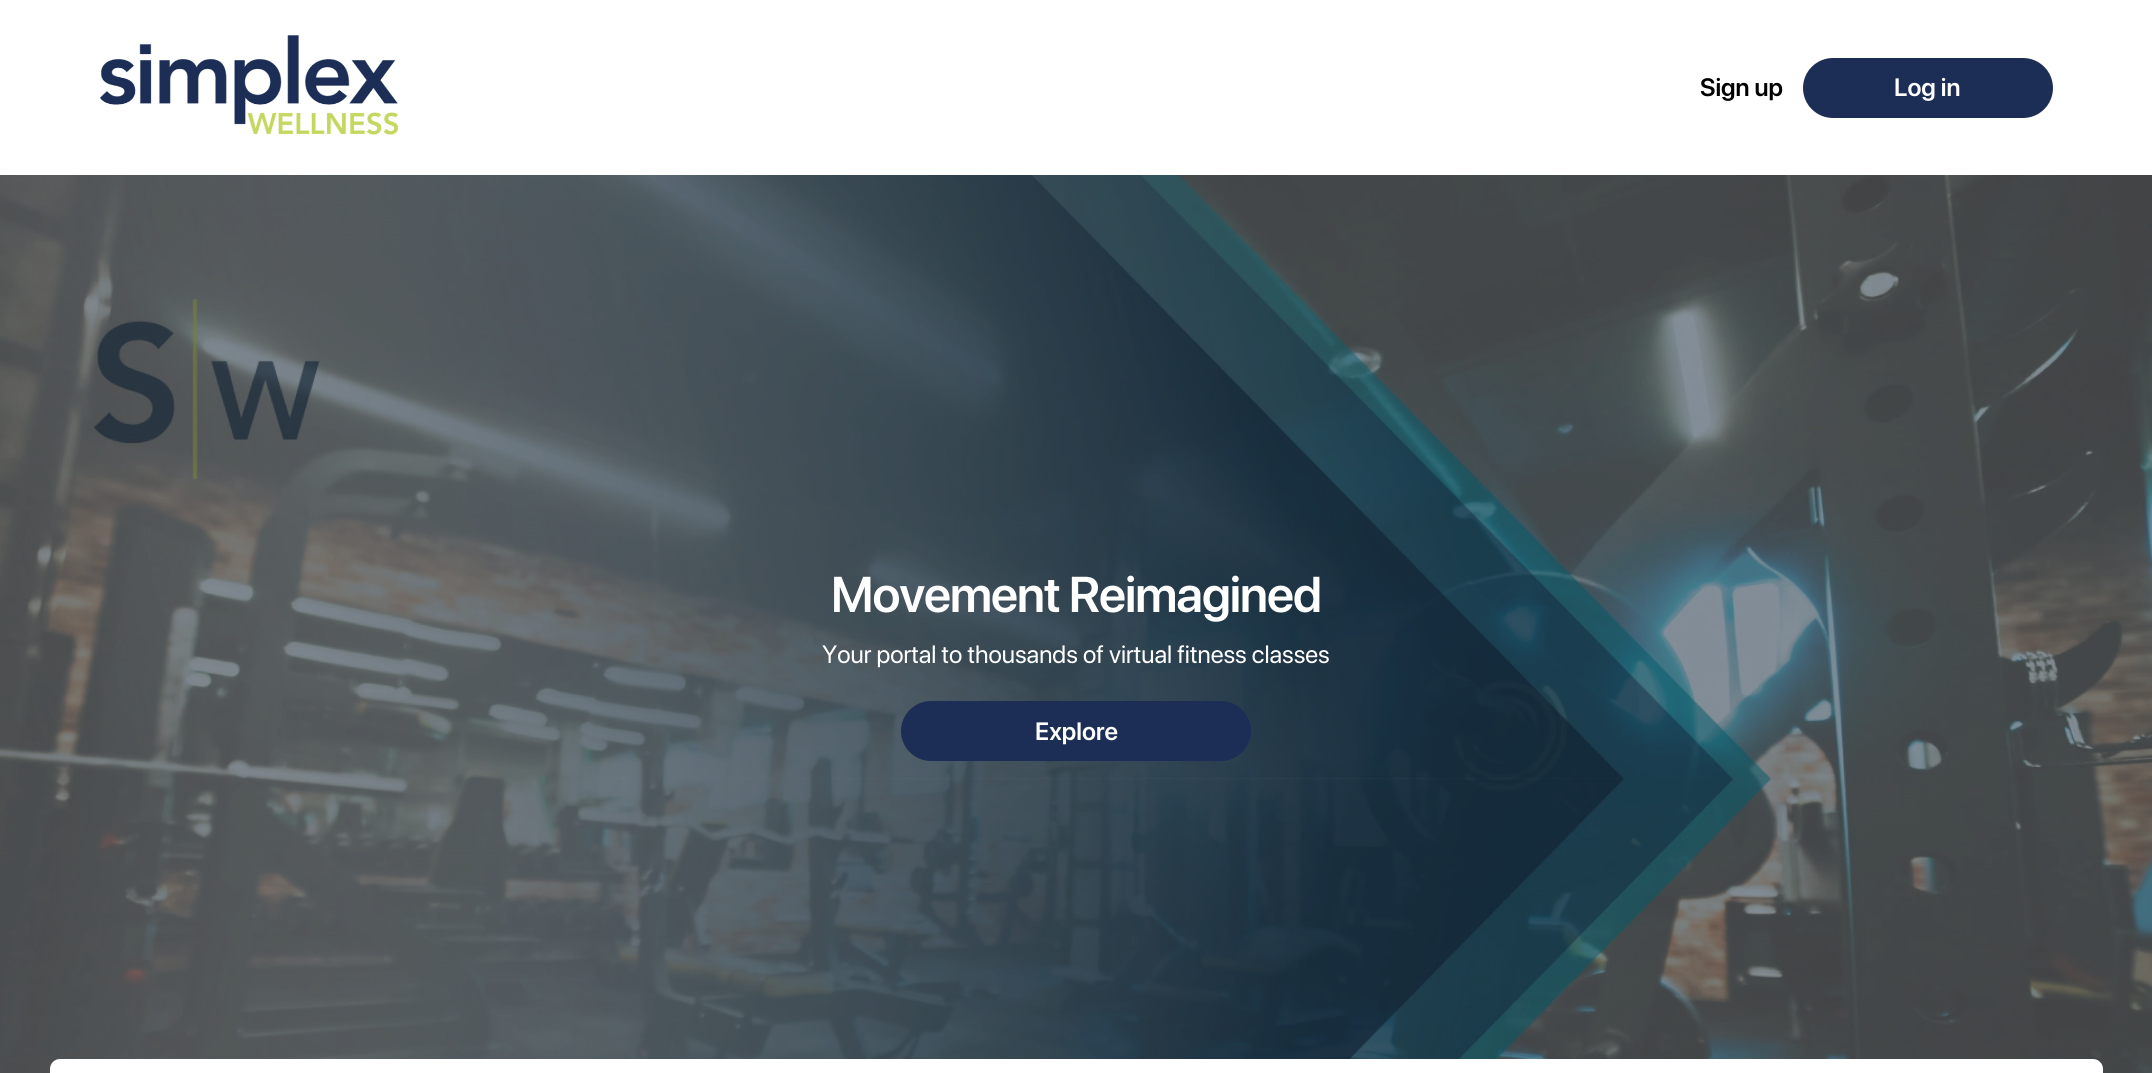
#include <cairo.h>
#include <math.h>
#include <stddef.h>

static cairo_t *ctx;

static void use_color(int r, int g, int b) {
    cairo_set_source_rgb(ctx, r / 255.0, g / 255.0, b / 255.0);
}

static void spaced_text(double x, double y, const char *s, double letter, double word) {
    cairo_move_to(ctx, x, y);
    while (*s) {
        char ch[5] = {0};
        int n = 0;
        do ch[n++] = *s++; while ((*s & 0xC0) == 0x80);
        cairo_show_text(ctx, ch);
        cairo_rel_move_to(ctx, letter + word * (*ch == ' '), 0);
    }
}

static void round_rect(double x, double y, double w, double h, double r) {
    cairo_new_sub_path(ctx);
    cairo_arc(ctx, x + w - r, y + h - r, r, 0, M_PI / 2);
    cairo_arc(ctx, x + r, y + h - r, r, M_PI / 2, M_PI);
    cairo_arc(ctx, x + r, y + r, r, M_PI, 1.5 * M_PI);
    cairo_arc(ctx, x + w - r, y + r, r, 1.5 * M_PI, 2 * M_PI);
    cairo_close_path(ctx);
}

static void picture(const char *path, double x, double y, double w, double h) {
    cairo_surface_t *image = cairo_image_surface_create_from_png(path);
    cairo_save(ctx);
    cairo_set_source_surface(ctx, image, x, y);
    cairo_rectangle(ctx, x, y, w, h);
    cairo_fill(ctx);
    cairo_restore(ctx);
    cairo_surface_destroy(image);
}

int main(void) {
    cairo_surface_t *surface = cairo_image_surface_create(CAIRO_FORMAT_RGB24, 2152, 1073);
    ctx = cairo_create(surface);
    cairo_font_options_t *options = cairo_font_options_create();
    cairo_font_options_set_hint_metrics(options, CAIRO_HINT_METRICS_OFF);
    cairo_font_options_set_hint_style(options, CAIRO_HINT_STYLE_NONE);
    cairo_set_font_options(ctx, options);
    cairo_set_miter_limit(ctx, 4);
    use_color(255, 255, 255);
    cairo_paint(ctx);
    picture("img1.png", 100, 35, 299, 100);
    cairo_select_font_face(ctx, "SF Pro Display SemiBold", CAIRO_FONT_SLANT_NORMAL, CAIRO_FONT_WEIGHT_NORMAL);
    cairo_set_font_size(ctx, 25);
    use_color(0, 0, 0);
    cairo_move_to(ctx, 1700, 96);
    cairo_show_text(ctx, "Sign up");
    use_color(29, 46, 86);
    round_rect(1803, 58, 250, 60, 30);
    cairo_fill(ctx);
    use_color(255, 255, 255);
    cairo_move_to(ctx, 1894, 96);
    cairo_show_text(ctx, "Log in");
    picture("img2.png", 0, 175, 2152, 898);
    cairo_set_font_size(ctx, 50);
    spaced_text(831, 612, "Movement Reimagined", -1, 0);
    cairo_select_font_face(ctx, "SF Pro Display", CAIRO_FONT_SLANT_NORMAL, CAIRO_FONT_WEIGHT_NORMAL);
    cairo_set_font_size(ctx, 25);
    cairo_move_to(ctx, 822, 663);
    cairo_show_text(ctx, "Your portal to thousands of virtual fitness classes");
    use_color(29, 46, 86);
    round_rect(901, 701, 350, 60, 30);
    cairo_fill(ctx);
    cairo_select_font_face(ctx, "SF Pro Display SemiBold", CAIRO_FONT_SLANT_NORMAL, CAIRO_FONT_WEIGHT_NORMAL);
    use_color(255, 255, 255);
    cairo_move_to(ctx, 1035, 740);
    cairo_show_text(ctx, "Explore");
    cairo_new_path(ctx);
    cairo_move_to(ctx, 60, 1059);
    cairo_line_to(ctx, 2093, 1059);
    cairo_curve_to(ctx, 2098.5, 1059, 2103, 1063.5, 2103, 1069);
    cairo_line_to(ctx, 2103, 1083);
    cairo_line_to(ctx, 50, 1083);
    cairo_line_to(ctx, 50, 1069);
    cairo_curve_to(ctx, 50, 1063.5, 54.5, 1059, 60, 1059);
    cairo_close_path(ctx);
    cairo_fill(ctx);
    cairo_surface_write_to_png(surface, "result.png");
    cairo_font_options_destroy(options);
    cairo_destroy(ctx);
    cairo_surface_destroy(surface);
    return 0;
}
